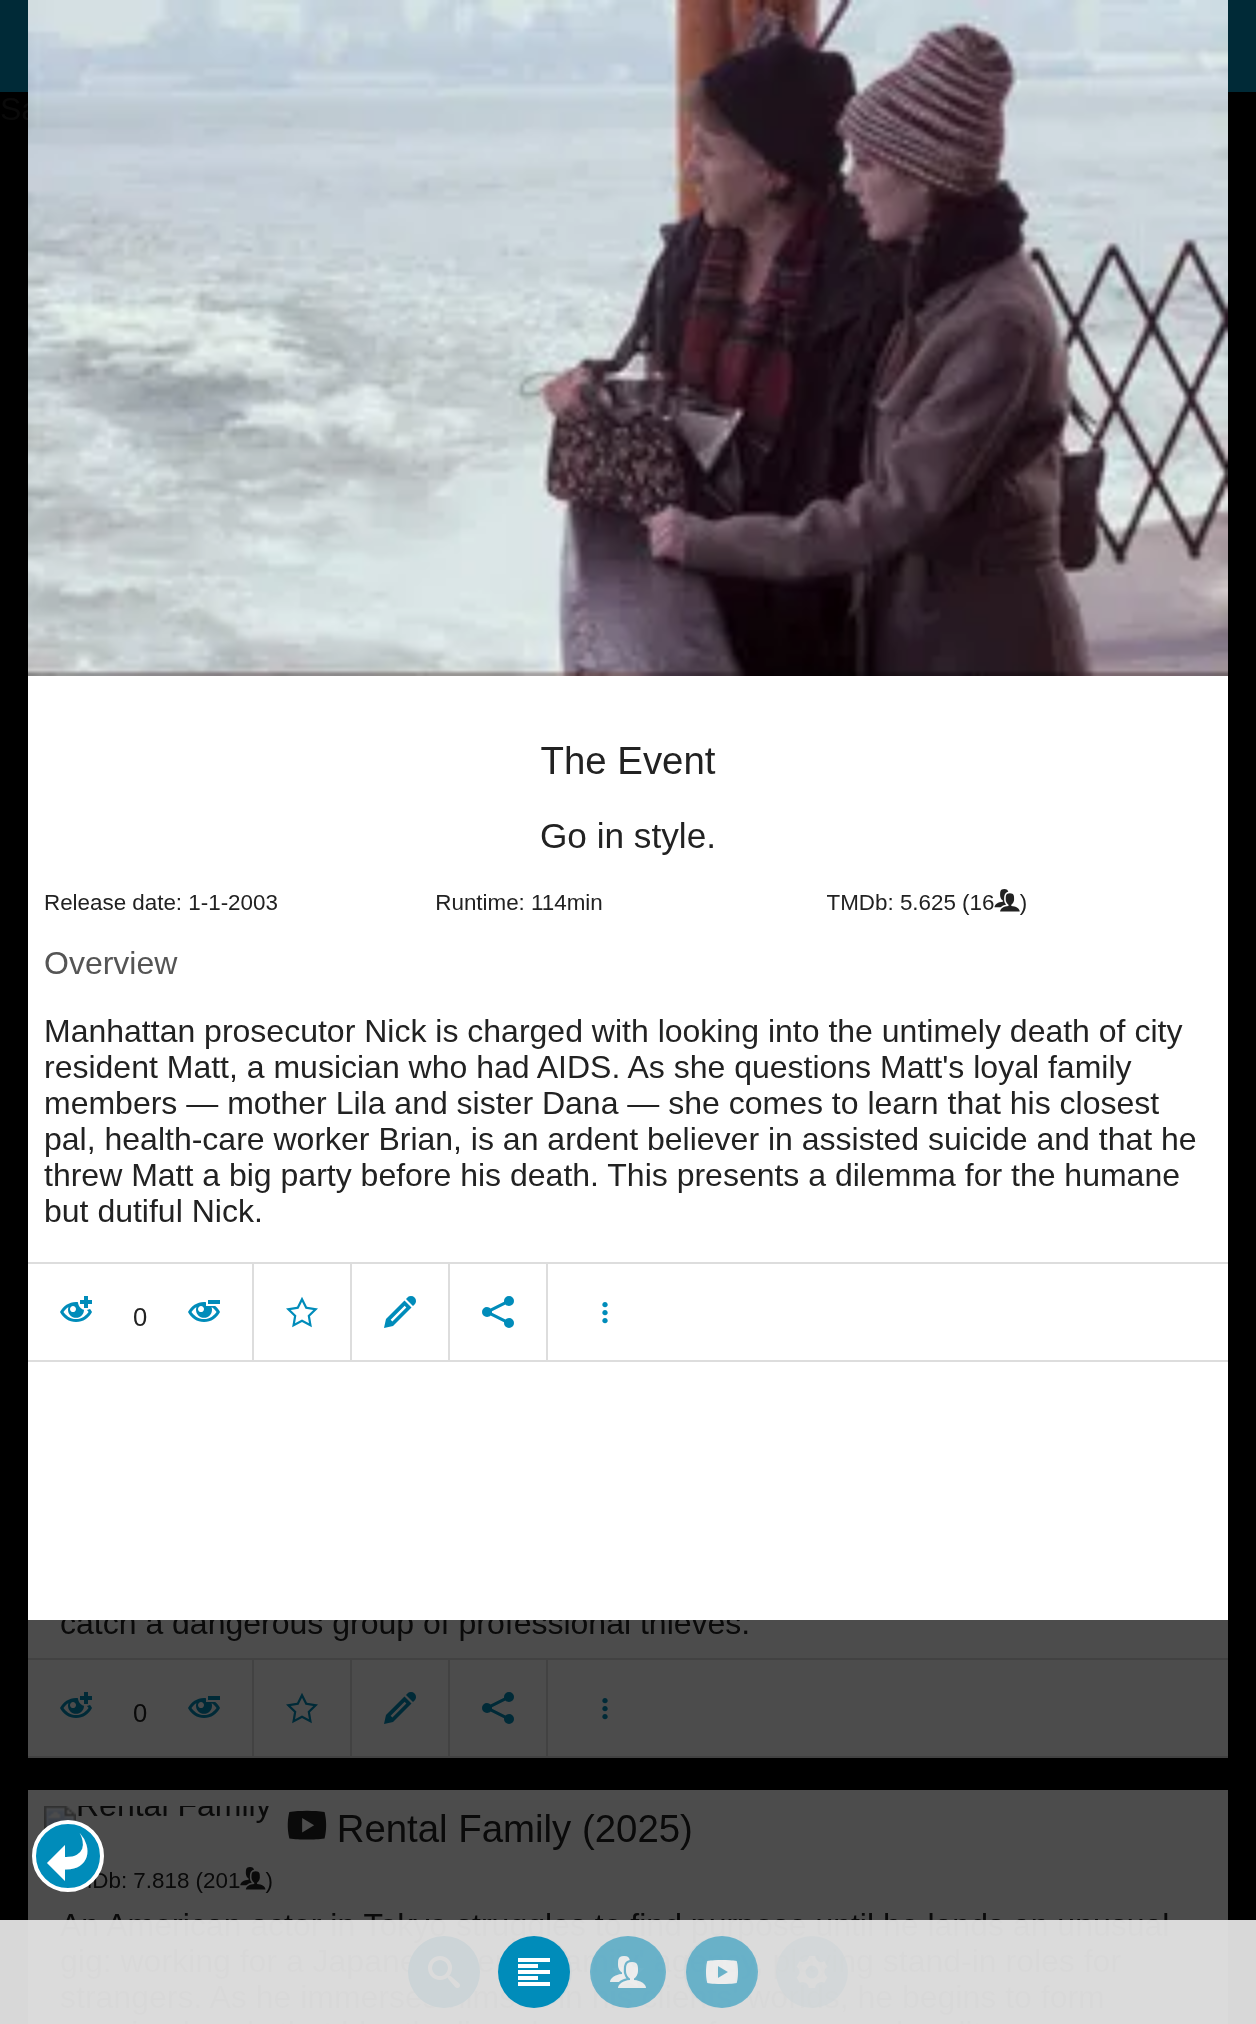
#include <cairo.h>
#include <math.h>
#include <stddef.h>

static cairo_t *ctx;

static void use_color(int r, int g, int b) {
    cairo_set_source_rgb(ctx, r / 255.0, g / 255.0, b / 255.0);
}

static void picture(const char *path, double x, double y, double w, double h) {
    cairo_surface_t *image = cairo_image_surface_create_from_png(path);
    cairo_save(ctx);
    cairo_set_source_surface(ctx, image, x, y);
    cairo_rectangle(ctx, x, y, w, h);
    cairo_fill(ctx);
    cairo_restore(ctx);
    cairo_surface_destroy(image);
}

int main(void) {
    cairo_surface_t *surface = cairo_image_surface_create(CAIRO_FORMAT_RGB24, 1256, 2024);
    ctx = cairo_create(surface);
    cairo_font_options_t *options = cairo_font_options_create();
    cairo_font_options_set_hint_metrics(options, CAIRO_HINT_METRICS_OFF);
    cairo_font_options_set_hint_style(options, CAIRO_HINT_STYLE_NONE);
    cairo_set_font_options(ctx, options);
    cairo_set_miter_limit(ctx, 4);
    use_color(255, 255, 255);
    cairo_paint(ctx);
    picture("img1.png", 0, 0, 1256, 2024);
    cairo_surface_write_to_png(surface, "result.png");
    cairo_font_options_destroy(options);
    cairo_destroy(ctx);
    cairo_surface_destroy(surface);
    return 0;
}
